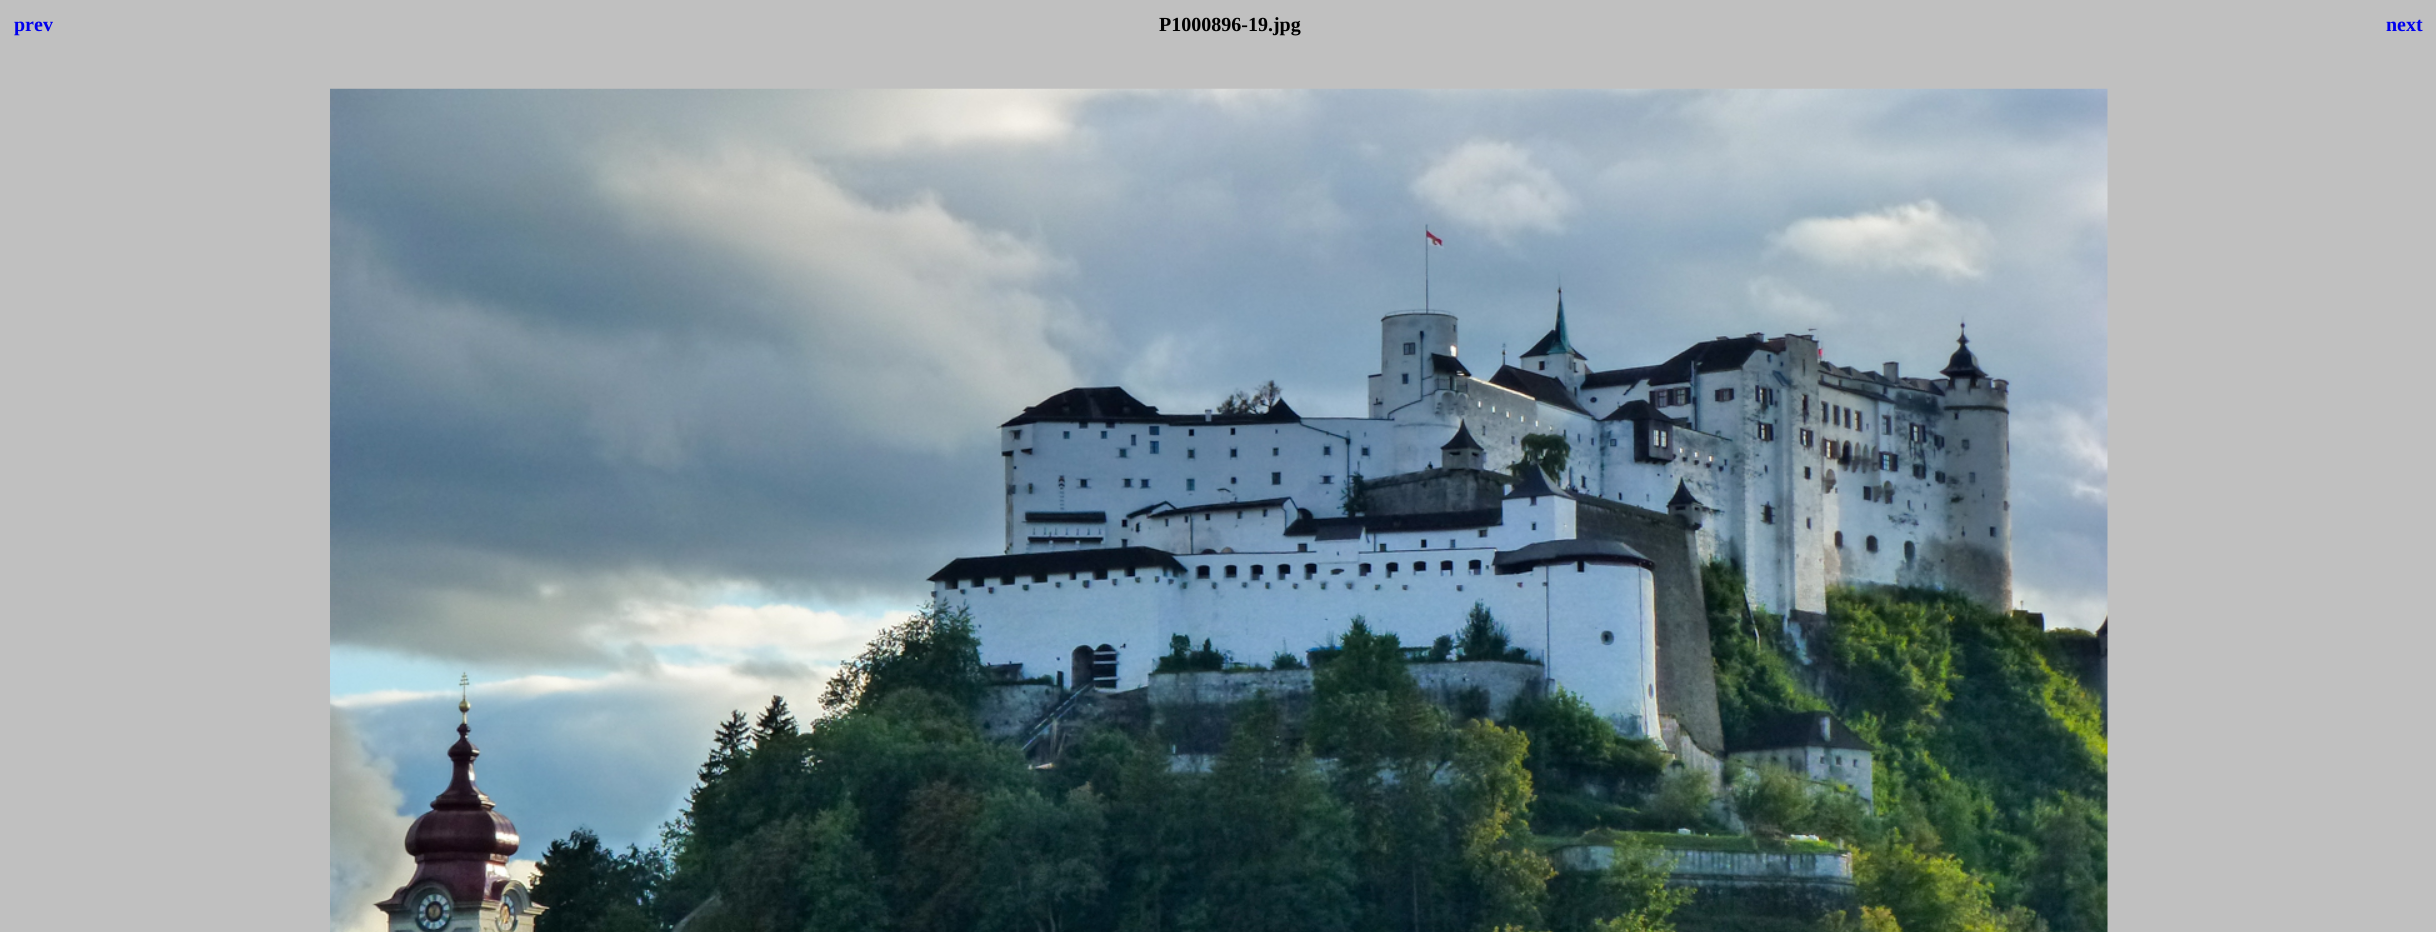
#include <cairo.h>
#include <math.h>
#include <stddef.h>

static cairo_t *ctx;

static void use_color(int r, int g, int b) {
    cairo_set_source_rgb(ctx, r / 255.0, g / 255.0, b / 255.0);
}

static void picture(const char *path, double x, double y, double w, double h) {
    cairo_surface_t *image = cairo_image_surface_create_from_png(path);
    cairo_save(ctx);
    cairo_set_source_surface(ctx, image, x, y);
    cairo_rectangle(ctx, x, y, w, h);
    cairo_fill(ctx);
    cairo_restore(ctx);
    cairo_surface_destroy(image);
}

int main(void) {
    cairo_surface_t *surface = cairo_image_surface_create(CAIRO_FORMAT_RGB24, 2436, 932);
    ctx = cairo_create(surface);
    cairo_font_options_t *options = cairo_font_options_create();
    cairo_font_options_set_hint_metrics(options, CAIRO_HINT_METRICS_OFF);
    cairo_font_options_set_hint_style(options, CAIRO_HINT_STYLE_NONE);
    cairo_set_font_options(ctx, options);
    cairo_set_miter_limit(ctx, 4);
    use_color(192, 192, 192);
    cairo_paint(ctx);
    cairo_select_font_face(ctx, "Liberation Serif", CAIRO_FONT_SLANT_NORMAL, CAIRO_FONT_WEIGHT_BOLD);
    cairo_set_font_size(ctx, 20);
    use_color(0, 0, 238);
    cairo_move_to(ctx, 14, 31);
    cairo_show_text(ctx, "prev");
    use_color(0, 0, 0);
    cairo_move_to(ctx, 1159, 31);
    cairo_show_text(ctx, "P1000896-19.jpg");
    use_color(0, 0, 238);
    cairo_move_to(ctx, 2386, 31);
    cairo_show_text(ctx, "next");
    picture("img1.png", 330, 88, 1778, 844);
    cairo_surface_write_to_png(surface, "result.png");
    cairo_font_options_destroy(options);
    cairo_destroy(ctx);
    cairo_surface_destroy(surface);
    return 0;
}
